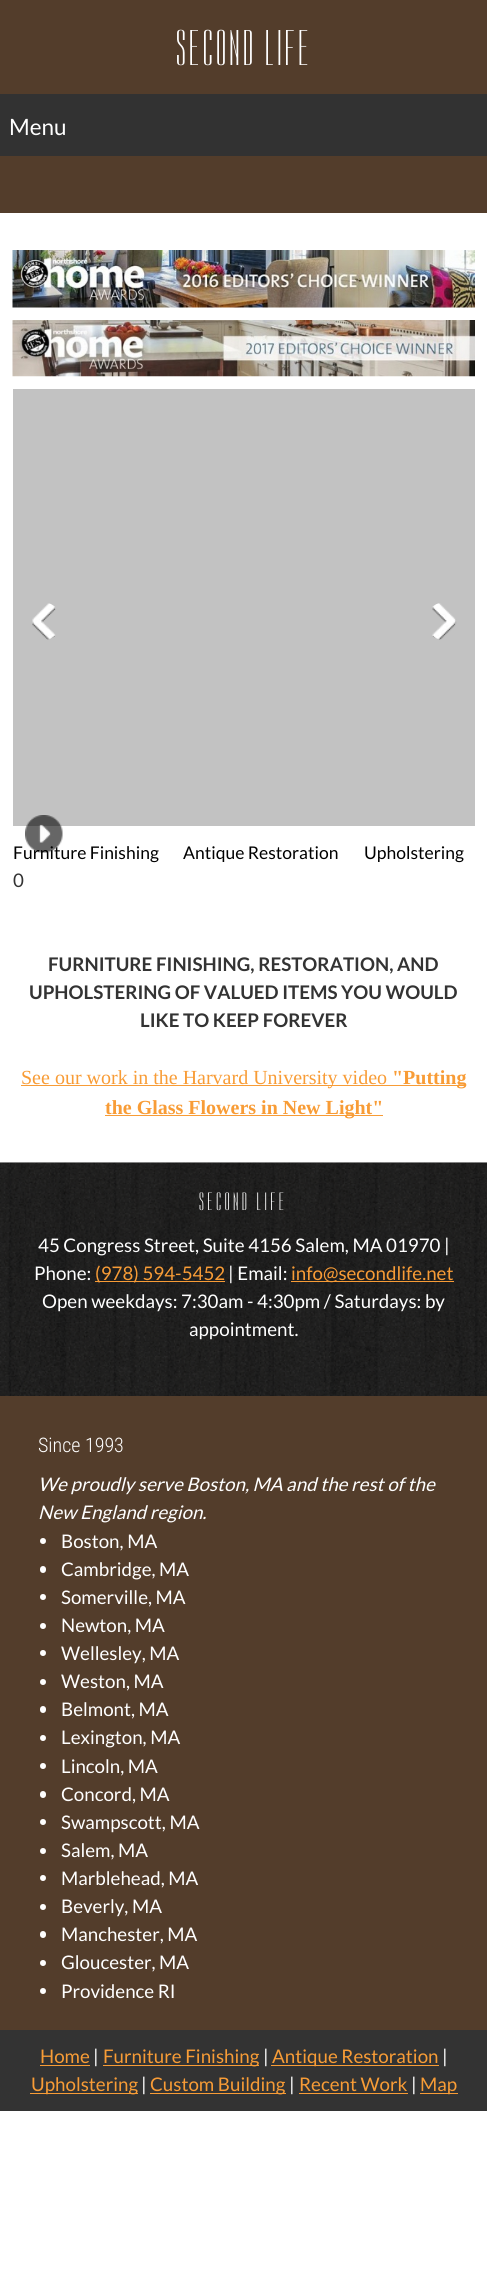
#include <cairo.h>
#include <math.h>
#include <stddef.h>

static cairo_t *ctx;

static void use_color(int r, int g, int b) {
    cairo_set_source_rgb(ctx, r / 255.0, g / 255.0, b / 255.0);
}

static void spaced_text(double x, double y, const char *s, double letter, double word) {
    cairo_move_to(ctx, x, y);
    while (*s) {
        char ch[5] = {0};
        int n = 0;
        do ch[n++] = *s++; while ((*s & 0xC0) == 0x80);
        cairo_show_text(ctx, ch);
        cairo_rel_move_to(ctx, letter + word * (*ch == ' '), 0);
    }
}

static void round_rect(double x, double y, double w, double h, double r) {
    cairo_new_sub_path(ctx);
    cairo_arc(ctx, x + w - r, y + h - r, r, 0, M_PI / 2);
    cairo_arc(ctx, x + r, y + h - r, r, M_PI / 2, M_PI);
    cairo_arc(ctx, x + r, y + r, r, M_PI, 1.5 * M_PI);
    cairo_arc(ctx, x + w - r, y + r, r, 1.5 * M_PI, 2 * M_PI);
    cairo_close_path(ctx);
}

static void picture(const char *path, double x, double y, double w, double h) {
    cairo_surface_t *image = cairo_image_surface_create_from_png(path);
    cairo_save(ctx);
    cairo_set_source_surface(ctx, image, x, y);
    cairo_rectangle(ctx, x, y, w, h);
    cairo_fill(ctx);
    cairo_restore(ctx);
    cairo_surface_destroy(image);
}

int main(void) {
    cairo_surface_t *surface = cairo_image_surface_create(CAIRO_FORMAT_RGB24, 487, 2276);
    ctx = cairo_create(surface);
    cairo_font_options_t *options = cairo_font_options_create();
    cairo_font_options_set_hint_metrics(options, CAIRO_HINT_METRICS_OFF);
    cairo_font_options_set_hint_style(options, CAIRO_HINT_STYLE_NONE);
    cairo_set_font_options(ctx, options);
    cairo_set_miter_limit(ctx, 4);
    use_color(255, 255, 255);
    cairo_paint(ctx);
    use_color(230, 230, 230);
    cairo_rectangle(ctx, 0, 1162, 487, 1);
    cairo_fill(ctx);
    use_color(83, 61, 43);
    cairo_rectangle(ctx, 0, 0, 487, 213);
    cairo_fill(ctx);
    cairo_select_font_face(ctx, "Dorsa", CAIRO_FONT_SLANT_NORMAL, CAIRO_FONT_WEIGHT_NORMAL);
    cairo_set_font_size(ctx, 50);
    use_color(255, 255, 255);
    spaced_text(176, 65, "SECOND LIFE", 3.75, 0);
    use_color(50, 50, 50);
    cairo_rectangle(ctx, 0, 94, 487, 62);
    cairo_fill(ctx);
    cairo_select_font_face(ctx, "Lato", CAIRO_FONT_SLANT_NORMAL, CAIRO_FONT_WEIGHT_NORMAL);
    cairo_set_font_size(ctx, 22.5);
    use_color(255, 255, 255);
    cairo_move_to(ctx, 9, 135);
    cairo_show_text(ctx, "Menu");
    picture("img1.png", 12, 250, 463, 58);
    picture("img2.png", 12, 320, 463, 57);
    use_color(194, 194, 194);
    cairo_rectangle(ctx, 13, 389, 462, 437);
    cairo_fill(ctx);
    picture("img3.png", 32, 603, 24, 37);
    picture("img4.png", 432, 603, 25, 37);
    cairo_set_font_size(ctx, 17.5);
    use_color(0, 0, 0);
    cairo_move_to(ctx, 13, 859);
    cairo_show_text(ctx, "Furniture Finishing");
    picture("img5.png", 25, 815, 38, 38);
    cairo_move_to(ctx, 183, 859);
    cairo_show_text(ctx, "Antique Restoration");
    cairo_move_to(ctx, 364, 859);
    cairo_show_text(ctx, "Upholstering");
    cairo_set_font_size(ctx, 18.75);
    use_color(51, 51, 51);
    cairo_move_to(ctx, 13, 887);
    cairo_show_text(ctx, "0");
    cairo_select_font_face(ctx, "Lato", CAIRO_FONT_SLANT_NORMAL, CAIRO_FONT_WEIGHT_BOLD);
    cairo_move_to(ctx, 48, 971);
    cairo_show_text(ctx, "FURNITURE FINISHING, RESTORATION, AND");
    cairo_move_to(ctx, 29, 999);
    cairo_show_text(ctx, "UPHOLSTERING OF VALUED ITEMS YOU WOULD");
    cairo_move_to(ctx, 140, 1027);
    cairo_show_text(ctx, "LIKE TO KEEP FOREVER");
    use_color(248, 156, 54);
    cairo_rectangle(ctx, 21, 1085, 445, 1);
    cairo_fill(ctx);
    cairo_select_font_face(ctx, "Liberation Serif", CAIRO_FONT_SLANT_NORMAL, CAIRO_FONT_WEIGHT_NORMAL);
    cairo_set_font_size(ctx, 20);
    cairo_move_to(ctx, 21, 1084);
    cairo_show_text(ctx, "See our work in the Harvard University video");
    cairo_select_font_face(ctx, "Liberation Serif", CAIRO_FONT_SLANT_NORMAL, CAIRO_FONT_WEIGHT_BOLD);
    cairo_move_to(ctx, 392, 1084);
    cairo_show_text(ctx, "\"Putting");
    cairo_rectangle(ctx, 105, 1115, 278, 1);
    cairo_fill(ctx);
    cairo_move_to(ctx, 105, 1114);
    cairo_show_text(ctx, "the Glass Flowers in New Light\"");
    picture("img6.png", 0, 1162, 487, 234);
    cairo_select_font_face(ctx, "Dorsa", CAIRO_FONT_SLANT_NORMAL, CAIRO_FONT_WEIGHT_NORMAL);
    cairo_set_font_size(ctx, 25);
    use_color(255, 255, 255);
    spaced_text(199, 1210, "SECOND LIFE", 3.75, 0);
    cairo_select_font_face(ctx, "Lato", CAIRO_FONT_SLANT_NORMAL, CAIRO_FONT_WEIGHT_NORMAL);
    cairo_set_font_size(ctx, 18.75);
    cairo_move_to(ctx, 38, 1252);
    cairo_show_text(ctx, "45 Congress Street, Suite 4156 Salem, MA 01970 |");
    cairo_move_to(ctx, 34, 1280);
    cairo_show_text(ctx, "Phone:");
    use_color(248, 156, 54);
    cairo_rectangle(ctx, 95, 1281, 130, 1);
    cairo_fill(ctx);
    cairo_move_to(ctx, 95, 1280);
    cairo_show_text(ctx, "(978) 594-5452");
    use_color(255, 255, 255);
    cairo_move_to(ctx, 228, 1280);
    cairo_show_text(ctx, "| Email:");
    use_color(248, 156, 54);
    cairo_rectangle(ctx, 291, 1281, 163, 1);
    cairo_fill(ctx);
    cairo_move_to(ctx, 291, 1280);
    cairo_show_text(ctx, "info@secondlife.net");
    use_color(255, 255, 255);
    cairo_move_to(ctx, 42, 1308);
    cairo_show_text(ctx, "Open weekdays: 7:30am - 4:30pm / Saturdays: by");
    cairo_move_to(ctx, 189, 1336);
    cairo_show_text(ctx, "appointment.");
    use_color(83, 61, 43);
    cairo_rectangle(ctx, 0, 1396, 487, 634);
    cairo_fill(ctx);
    cairo_select_font_face(ctx, "Roboto Condensed Light", CAIRO_FONT_SLANT_NORMAL, CAIRO_FONT_WEIGHT_NORMAL);
    cairo_set_font_size(ctx, 20);
    use_color(255, 255, 255);
    cairo_move_to(ctx, 38, 1452);
    cairo_show_text(ctx, "Since 1993");
    cairo_select_font_face(ctx, "Lato", CAIRO_FONT_SLANT_ITALIC, CAIRO_FONT_WEIGHT_NORMAL);
    cairo_set_font_size(ctx, 18.75);
    cairo_move_to(ctx, 38, 1491);
    cairo_show_text(ctx, "We proudly serve Boston, MA and the rest of the");
    cairo_move_to(ctx, 38, 1519);
    cairo_show_text(ctx, "New England region.");
    cairo_new_path(ctx);
    cairo_arc(ctx, 43, 1541, 3, 0, 2 * M_PI);
    cairo_fill(ctx);
    cairo_select_font_face(ctx, "Lato", CAIRO_FONT_SLANT_NORMAL, CAIRO_FONT_WEIGHT_NORMAL);
    cairo_move_to(ctx, 61, 1548);
    cairo_show_text(ctx, "Boston, MA");
    round_rect(40, 1566, 6, 7, 3);
    cairo_fill(ctx);
    cairo_move_to(ctx, 61, 1576);
    cairo_show_text(ctx, "Cambridge, MA");
    cairo_new_path(ctx);
    cairo_arc(ctx, 43, 1597, 3, 0, 2 * M_PI);
    cairo_fill(ctx);
    cairo_move_to(ctx, 61, 1604);
    cairo_show_text(ctx, "Somerville, MA");
    cairo_new_path(ctx);
    cairo_arc(ctx, 43, 1626, 3, 0, 2 * M_PI);
    cairo_fill(ctx);
    cairo_move_to(ctx, 61, 1632);
    cairo_show_text(ctx, "Newton, MA");
    cairo_new_path(ctx);
    cairo_arc(ctx, 43, 1653, 3, 0, 2 * M_PI);
    cairo_fill(ctx);
    cairo_move_to(ctx, 61, 1660);
    cairo_show_text(ctx, "Wellesley, MA");
    cairo_new_path(ctx);
    cairo_arc(ctx, 43, 1682, 3, 0, 2 * M_PI);
    cairo_fill(ctx);
    cairo_move_to(ctx, 61, 1688);
    cairo_show_text(ctx, "Weston, MA");
    round_rect(40, 1706, 6, 7, 3);
    cairo_fill(ctx);
    cairo_move_to(ctx, 61, 1716);
    cairo_show_text(ctx, "Belmont, MA");
    cairo_new_path(ctx);
    cairo_arc(ctx, 43, 1738, 3, 0, 2 * M_PI);
    cairo_fill(ctx);
    cairo_move_to(ctx, 61, 1744);
    cairo_show_text(ctx, "Lexington, MA");
    cairo_new_path(ctx);
    cairo_arc(ctx, 43, 1766, 3, 0, 2 * M_PI);
    cairo_fill(ctx);
    cairo_move_to(ctx, 61, 1773);
    cairo_show_text(ctx, "Lincoln, MA");
    round_rect(40, 1791, 6, 7, 3);
    cairo_fill(ctx);
    cairo_move_to(ctx, 61, 1801);
    cairo_show_text(ctx, "Concord, MA");
    cairo_new_path(ctx);
    cairo_arc(ctx, 43, 1822, 3, 0, 2 * M_PI);
    cairo_fill(ctx);
    cairo_move_to(ctx, 61, 1829);
    cairo_show_text(ctx, "Swampscott, MA");
    cairo_new_path(ctx);
    cairo_arc(ctx, 43, 1851, 3, 0, 2 * M_PI);
    cairo_fill(ctx);
    cairo_move_to(ctx, 61, 1857);
    cairo_show_text(ctx, "Salem, MA");
    cairo_new_path(ctx);
    cairo_arc(ctx, 43, 1878, 3, 0, 2 * M_PI);
    cairo_fill(ctx);
    cairo_move_to(ctx, 61, 1885);
    cairo_show_text(ctx, "Marblehead, MA");
    cairo_new_path(ctx);
    cairo_arc(ctx, 43, 1907, 3, 0, 2 * M_PI);
    cairo_fill(ctx);
    cairo_move_to(ctx, 61, 1913);
    cairo_show_text(ctx, "Beverly, MA");
    round_rect(40, 1931, 6, 7, 3);
    cairo_fill(ctx);
    cairo_move_to(ctx, 61, 1941);
    cairo_show_text(ctx, "Manchester, MA");
    cairo_new_path(ctx);
    cairo_arc(ctx, 43, 1963, 3, 0, 2 * M_PI);
    cairo_fill(ctx);
    cairo_move_to(ctx, 61, 1969);
    cairo_show_text(ctx, "Gloucester, MA");
    cairo_new_path(ctx);
    cairo_arc(ctx, 43, 1991, 3, 0, 2 * M_PI);
    cairo_fill(ctx);
    cairo_move_to(ctx, 61, 1998);
    cairo_show_text(ctx, "Providence RI");
    use_color(51, 51, 51);
    cairo_rectangle(ctx, 0, 2030, 487, 81);
    cairo_fill(ctx);
    use_color(248, 156, 54);
    cairo_move_to(ctx, 40, 2063);
    cairo_show_text(ctx, "Home");
    cairo_rectangle(ctx, 40, 2065, 50, 1);
    cairo_fill(ctx);
    use_color(255, 255, 255);
    cairo_move_to(ctx, 93, 2063);
    cairo_show_text(ctx, "|");
    use_color(248, 156, 54);
    cairo_rectangle(ctx, 103, 2065, 156, 1);
    cairo_fill(ctx);
    cairo_move_to(ctx, 103, 2063);
    cairo_show_text(ctx, "Furniture Finishing");
    use_color(255, 255, 255);
    cairo_move_to(ctx, 263, 2063);
    cairo_show_text(ctx, "|");
    use_color(248, 156, 54);
    cairo_rectangle(ctx, 271, 2065, 168, 1);
    cairo_fill(ctx);
    cairo_move_to(ctx, 272, 2063);
    cairo_show_text(ctx, "Antique Restoration");
    use_color(255, 255, 255);
    cairo_move_to(ctx, 442, 2063);
    cairo_show_text(ctx, "|");
    use_color(248, 156, 54);
    cairo_rectangle(ctx, 30, 2093, 108, 1);
    cairo_fill(ctx);
    cairo_move_to(ctx, 31, 2091);
    cairo_show_text(ctx, "Upholstering");
    use_color(255, 255, 255);
    cairo_move_to(ctx, 141, 2091);
    cairo_show_text(ctx, "|");
    use_color(248, 156, 54);
    cairo_rectangle(ctx, 150, 2093, 136, 1);
    cairo_fill(ctx);
    cairo_move_to(ctx, 150, 2091);
    cairo_show_text(ctx, "Custom Building");
    use_color(255, 255, 255);
    cairo_move_to(ctx, 289, 2091);
    cairo_show_text(ctx, "|");
    use_color(248, 156, 54);
    cairo_move_to(ctx, 299, 2091);
    cairo_show_text(ctx, "Recent Work");
    cairo_rectangle(ctx, 299, 2093, 109, 1);
    cairo_fill(ctx);
    use_color(255, 255, 255);
    cairo_move_to(ctx, 411, 2091);
    cairo_show_text(ctx, "|");
    use_color(248, 156, 54);
    cairo_rectangle(ctx, 420, 2093, 38, 1);
    cairo_fill(ctx);
    cairo_move_to(ctx, 420, 2091);
    cairo_show_text(ctx, "Map");
    cairo_surface_write_to_png(surface, "result.png");
    cairo_font_options_destroy(options);
    cairo_destroy(ctx);
    cairo_surface_destroy(surface);
    return 0;
}
